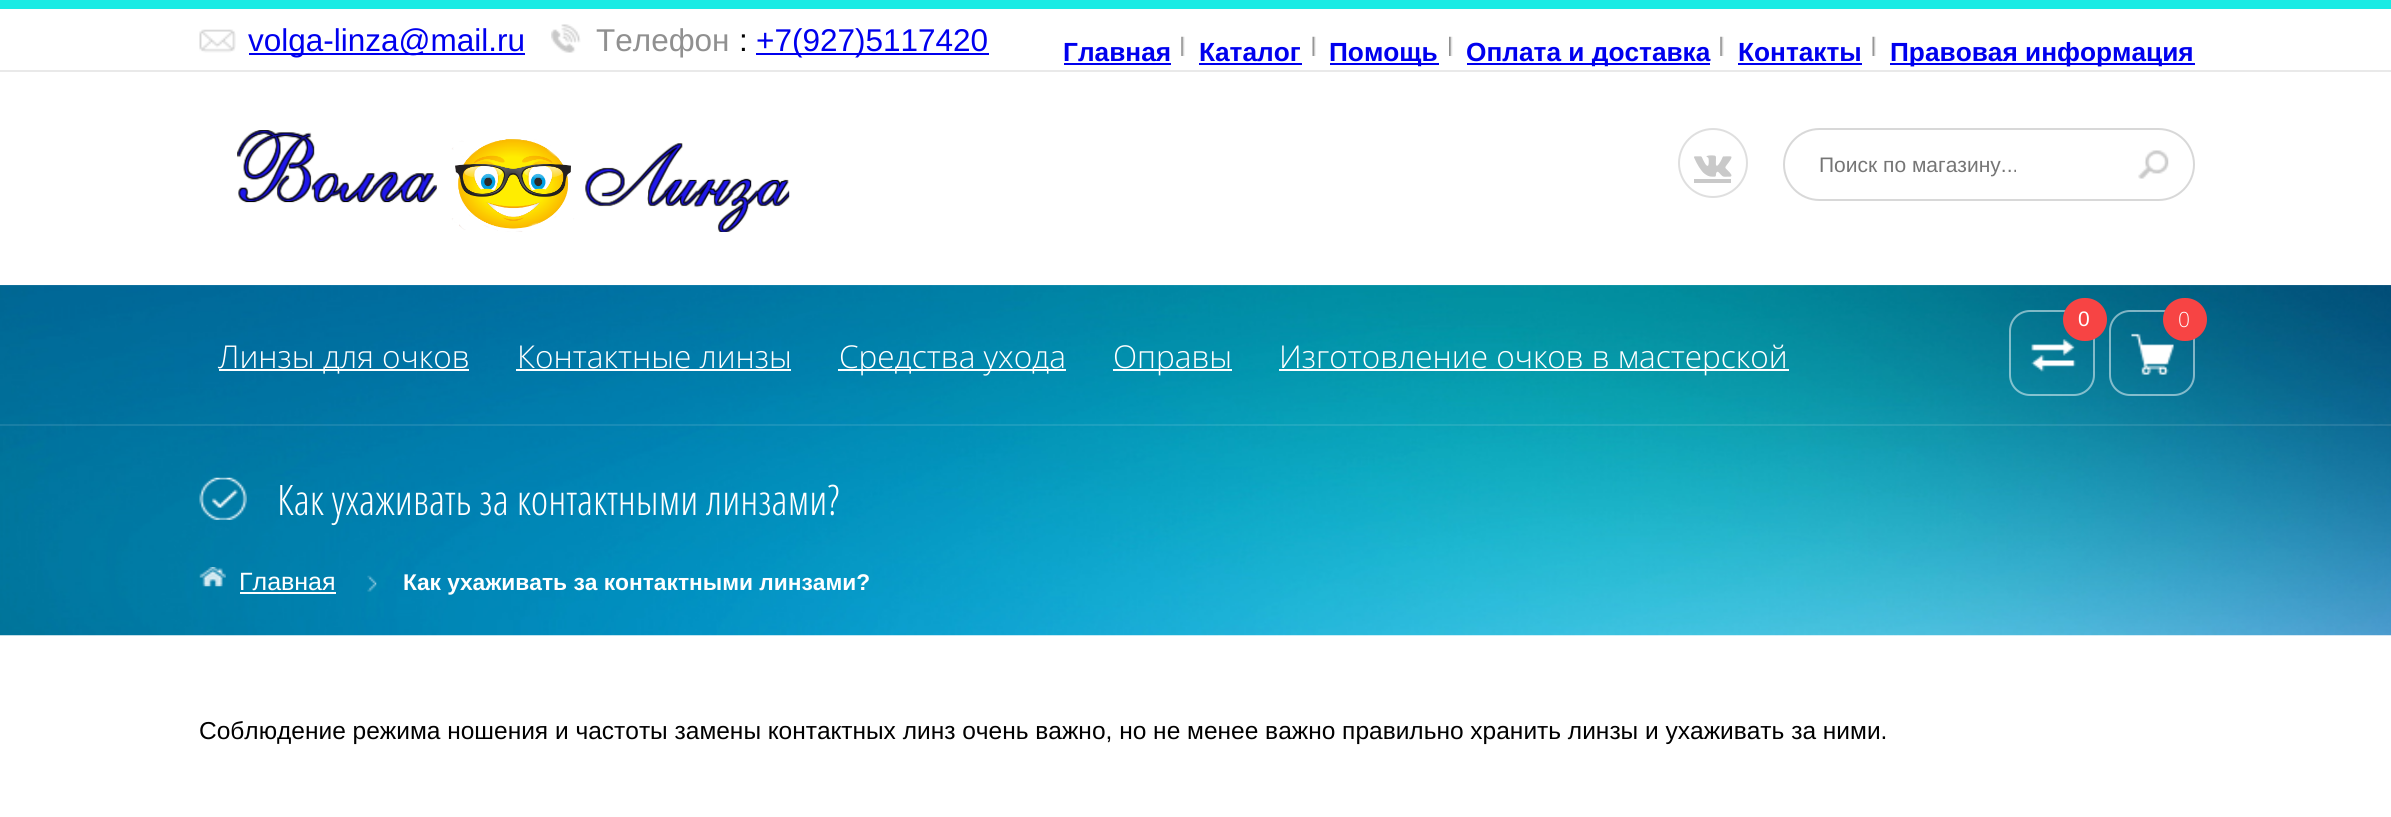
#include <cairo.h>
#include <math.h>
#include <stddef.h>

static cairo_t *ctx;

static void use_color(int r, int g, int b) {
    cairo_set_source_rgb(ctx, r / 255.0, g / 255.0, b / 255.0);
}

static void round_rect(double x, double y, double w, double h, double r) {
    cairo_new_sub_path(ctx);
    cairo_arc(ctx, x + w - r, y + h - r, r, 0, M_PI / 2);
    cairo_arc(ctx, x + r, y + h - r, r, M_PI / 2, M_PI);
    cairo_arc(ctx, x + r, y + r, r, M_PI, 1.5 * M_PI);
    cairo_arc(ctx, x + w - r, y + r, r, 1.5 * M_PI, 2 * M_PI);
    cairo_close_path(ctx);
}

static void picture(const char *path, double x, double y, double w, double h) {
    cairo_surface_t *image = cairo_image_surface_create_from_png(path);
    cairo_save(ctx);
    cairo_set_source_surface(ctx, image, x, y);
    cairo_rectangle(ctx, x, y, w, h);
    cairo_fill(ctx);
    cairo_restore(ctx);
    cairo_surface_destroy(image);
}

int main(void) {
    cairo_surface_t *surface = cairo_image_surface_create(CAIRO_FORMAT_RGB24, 2391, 817);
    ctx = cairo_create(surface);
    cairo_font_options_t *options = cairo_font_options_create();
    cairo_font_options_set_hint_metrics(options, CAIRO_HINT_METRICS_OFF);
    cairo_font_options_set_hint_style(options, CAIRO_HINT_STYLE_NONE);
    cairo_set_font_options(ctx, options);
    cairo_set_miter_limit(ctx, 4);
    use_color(255, 255, 255);
    cairo_paint(ctx);
    use_color(26, 235, 228);
    cairo_rectangle(ctx, 0, 0, 2391, 9);
    cairo_fill(ctx);
    picture("img1.png", 199, 29, 37, 24);
    use_color(0, 0, 238);
    cairo_rectangle(ctx, 249, 53, 276, 2);
    cairo_fill(ctx);
    cairo_select_font_face(ctx, "Liberation Sans", CAIRO_FONT_SLANT_NORMAL, CAIRO_FONT_WEIGHT_NORMAL);
    cairo_set_font_size(ctx, 31.5);
    cairo_move_to(ctx, 248, 51);
    cairo_show_text(ctx, "volga-linza@mail.ru");
    picture("img2.png", 551, 24, 30, 29);
    use_color(144, 144, 144);
    cairo_move_to(ctx, 596, 51);
    cairo_show_text(ctx, "Телефон");
    use_color(0, 0, 0);
    cairo_move_to(ctx, 739, 51);
    cairo_show_text(ctx, ":");
    use_color(0, 0, 238);
    cairo_rectangle(ctx, 756, 53, 233, 2);
    cairo_fill(ctx);
    cairo_move_to(ctx, 756, 51);
    cairo_show_text(ctx, "+7(927)5117420");
    picture("img3.png", 1181, 36, 4, 20);
    cairo_select_font_face(ctx, "Liberation Sans", CAIRO_FONT_SLANT_NORMAL, CAIRO_FONT_WEIGHT_BOLD);
    cairo_set_font_size(ctx, 26.25);
    cairo_move_to(ctx, 1063, 61);
    cairo_show_text(ctx, "Главная");
    cairo_rectangle(ctx, 1064, 63, 107, 2);
    cairo_fill(ctx);
    picture("img4.png", 1312, 36, 4, 20);
    cairo_move_to(ctx, 1199, 61);
    cairo_show_text(ctx, "Каталог");
    cairo_rectangle(ctx, 1199, 63, 103, 2);
    cairo_fill(ctx);
    picture("img5.png", 1449, 36, 4, 20);
    cairo_rectangle(ctx, 1330, 63, 109, 2);
    cairo_fill(ctx);
    cairo_move_to(ctx, 1329, 61);
    cairo_show_text(ctx, "Помощь");
    picture("img3.png", 1720, 36, 4, 20);
    cairo_rectangle(ctx, 1467, 63, 243, 2);
    cairo_fill(ctx);
    cairo_move_to(ctx, 1466, 61);
    cairo_show_text(ctx, "Оплата и доставка");
    picture("img4.png", 1872, 36, 4, 20);
    cairo_move_to(ctx, 1738, 61);
    cairo_show_text(ctx, "Контакты");
    cairo_rectangle(ctx, 1738, 63, 124, 2);
    cairo_fill(ctx);
    cairo_rectangle(ctx, 1890, 63, 305, 2);
    cairo_fill(ctx);
    cairo_move_to(ctx, 1890, 61);
    cairo_show_text(ctx, "Правовая информация");
    use_color(233, 233, 233);
    cairo_rectangle(ctx, 0, 70, 2391, 2);
    cairo_fill(ctx);
    picture("img6.png", 237, 130, 553, 102);
    cairo_arc(ctx, 1713, 163, 34, 0, 2 * M_PI);
    use_color(223, 223, 223);
    cairo_stroke(ctx);
    picture("img7.png", 1694, 155, 38, 22);
    use_color(201, 201, 201);
    cairo_rectangle(ctx, 1694, 179, 37, 4);
    cairo_fill(ctx);
    round_rect(1784, 129, 410, 71, 35.5);
    use_color(216, 216, 216);
    cairo_stroke(ctx);
    cairo_select_font_face(ctx, "Liberation Sans", CAIRO_FONT_SLANT_NORMAL, CAIRO_FONT_WEIGHT_NORMAL);
    cairo_set_font_size(ctx, 21);
    use_color(117, 117, 117);
    cairo_move_to(ctx, 1819, 172);
    cairo_show_text(ctx, "Поиск по магазину...");
    picture("img8.png", 2138, 150, 31, 29);
    picture("img12.png", 0, 285, 2391, 351);
    picture("img9.png", 0, 285, 2391, 140);
    picture("img10.png", 2031, 339, 45, 33);
    round_rect(2010, 311, 84, 84, 20);
    cairo_set_source_rgba(ctx, 1, 1, 1, 0.5);
    cairo_stroke(ctx);
    use_color(247, 68, 68);
    round_rect(2063, 298, 44, 43, 21.5);
    cairo_fill(ctx);
    use_color(255, 255, 255);
    cairo_move_to(ctx, 2078, 326);
    cairo_show_text(ctx, "0");
    picture("img11.png", 2131, 333, 43, 42);
    round_rect(2110, 311, 84, 84, 20);
    cairo_set_source_rgba(ctx, 1, 1, 1, 0.5);
    cairo_stroke(ctx);
    use_color(247, 68, 68);
    round_rect(2163, 298, 44, 43, 21.5);
    cairo_fill(ctx);
    cairo_select_font_face(ctx, "Open Sans Light", CAIRO_FONT_SLANT_NORMAL, CAIRO_FONT_WEIGHT_NORMAL);
    use_color(255, 255, 255);
    cairo_move_to(ctx, 2178, 327);
    cairo_show_text(ctx, "0");
    cairo_rectangle(ctx, 219, 369, 250, 2);
    cairo_fill(ctx);
    cairo_set_font_size(ctx, 31.5);
    cairo_move_to(ctx, 218, 368);
    cairo_show_text(ctx, "Линзы для очков");
    cairo_move_to(ctx, 517, 368);
    cairo_show_text(ctx, "Контактные линзы");
    cairo_rectangle(ctx, 516, 369, 275, 2);
    cairo_fill(ctx);
    cairo_rectangle(ctx, 838, 369, 228, 2);
    cairo_fill(ctx);
    cairo_move_to(ctx, 839, 368);
    cairo_show_text(ctx, "Средства ухода");
    cairo_rectangle(ctx, 1113, 369, 119, 2);
    cairo_fill(ctx);
    cairo_move_to(ctx, 1113, 368);
    cairo_show_text(ctx, "Оправы");
    cairo_rectangle(ctx, 1279, 369, 510, 2);
    cairo_fill(ctx);
    cairo_move_to(ctx, 1279, 368);
    cairo_show_text(ctx, "Изготовление очков в мастерской");
    cairo_set_source_rgba(ctx, 1, 1, 1, 0.1);
    cairo_rectangle(ctx, 0, 424, 2391, 2);
    cairo_fill(ctx);
    picture("img13.png", 199, 477, 48, 43);
    cairo_select_font_face(ctx, "Open Sans Condensed Light", CAIRO_FONT_SLANT_NORMAL, CAIRO_FONT_WEIGHT_NORMAL);
    cairo_set_font_size(ctx, 42);
    use_color(255, 255, 255);
    cairo_move_to(ctx, 277, 515);
    cairo_show_text(ctx, "Как ухаживать за контактными линзами?");
    picture("img14.png", 199, 567, 27, 20);
    cairo_select_font_face(ctx, "Liberation Sans", CAIRO_FONT_SLANT_NORMAL, CAIRO_FONT_WEIGHT_NORMAL);
    cairo_set_font_size(ctx, 25);
    cairo_move_to(ctx, 239, 590);
    cairo_show_text(ctx, "Главная");
    cairo_rectangle(ctx, 240, 592, 96, 2);
    cairo_fill(ctx);
    picture("img15.png", 367, 575, 10, 17);
    cairo_select_font_face(ctx, "Liberation Sans", CAIRO_FONT_SLANT_NORMAL, CAIRO_FONT_WEIGHT_BOLD);
    cairo_set_font_size(ctx, 22.75);
    cairo_move_to(ctx, 403, 590);
    cairo_show_text(ctx, "Как ухаживать за контактными линзами?");
    cairo_select_font_face(ctx, "Liberation Sans", CAIRO_FONT_SLANT_NORMAL, CAIRO_FONT_WEIGHT_NORMAL);
    cairo_set_font_size(ctx, 24.5);
    use_color(0, 0, 0);
    cairo_move_to(ctx, 199, 739);
    cairo_show_text(ctx, "Соблюдение режима ношения и частоты замены контактных линз очень важно, но не менее важно правильно хранить линзы и ухаживать за ними.");
    cairo_surface_write_to_png(surface, "result.png");
    cairo_font_options_destroy(options);
    cairo_destroy(ctx);
    cairo_surface_destroy(surface);
    return 0;
}
